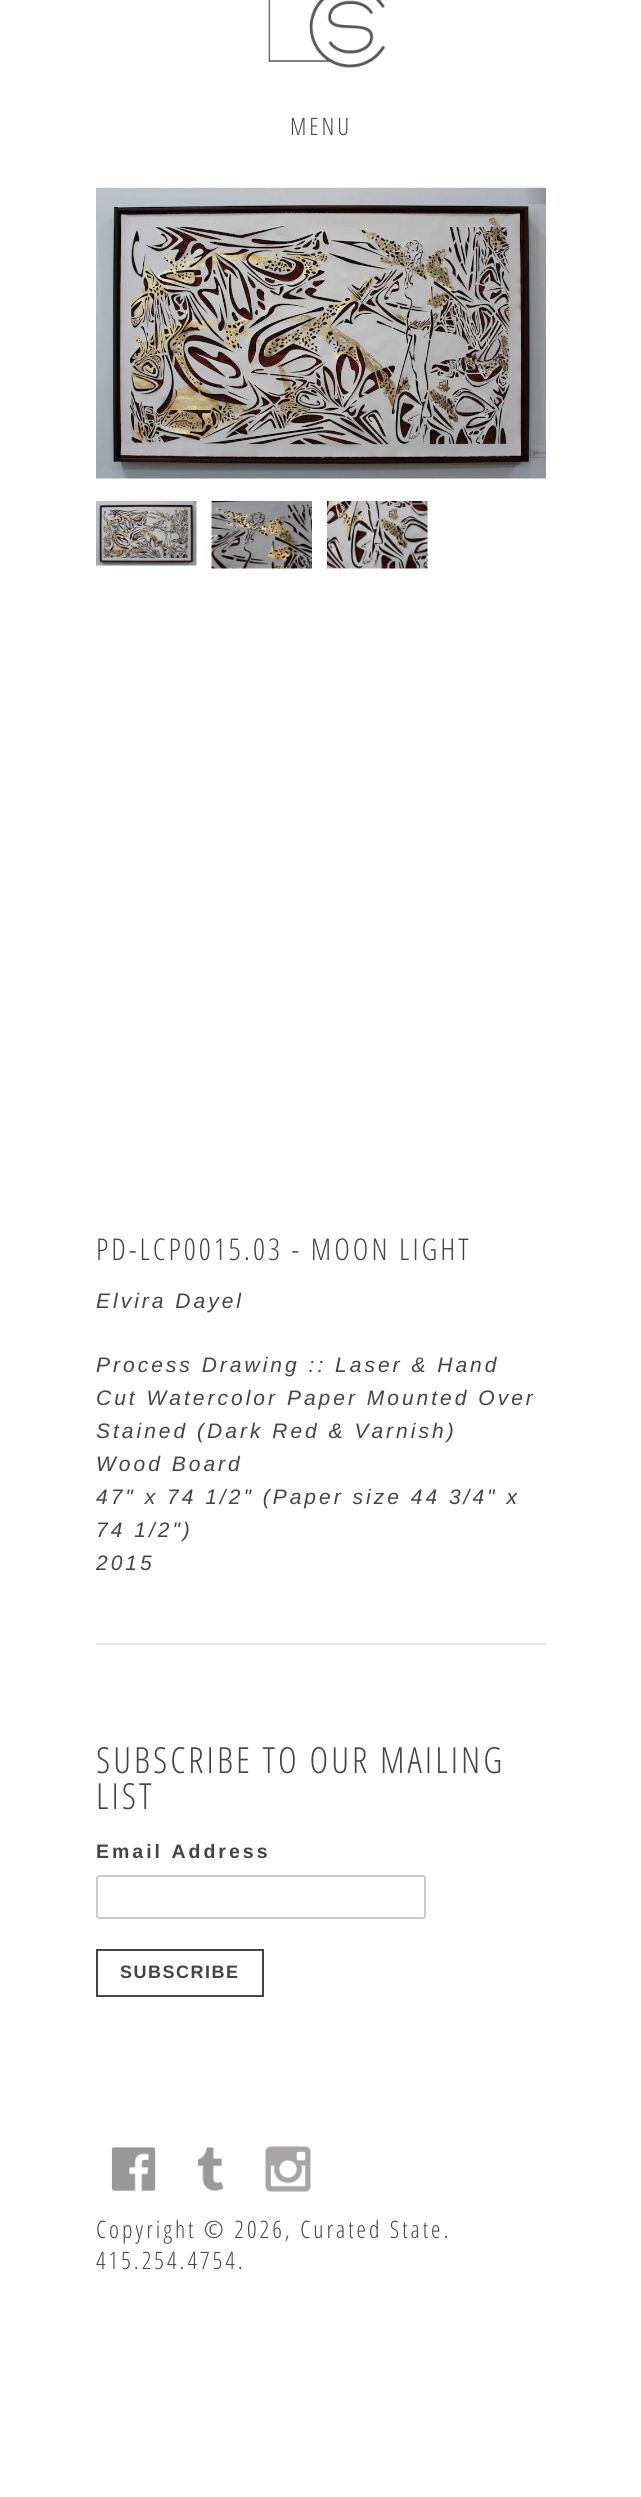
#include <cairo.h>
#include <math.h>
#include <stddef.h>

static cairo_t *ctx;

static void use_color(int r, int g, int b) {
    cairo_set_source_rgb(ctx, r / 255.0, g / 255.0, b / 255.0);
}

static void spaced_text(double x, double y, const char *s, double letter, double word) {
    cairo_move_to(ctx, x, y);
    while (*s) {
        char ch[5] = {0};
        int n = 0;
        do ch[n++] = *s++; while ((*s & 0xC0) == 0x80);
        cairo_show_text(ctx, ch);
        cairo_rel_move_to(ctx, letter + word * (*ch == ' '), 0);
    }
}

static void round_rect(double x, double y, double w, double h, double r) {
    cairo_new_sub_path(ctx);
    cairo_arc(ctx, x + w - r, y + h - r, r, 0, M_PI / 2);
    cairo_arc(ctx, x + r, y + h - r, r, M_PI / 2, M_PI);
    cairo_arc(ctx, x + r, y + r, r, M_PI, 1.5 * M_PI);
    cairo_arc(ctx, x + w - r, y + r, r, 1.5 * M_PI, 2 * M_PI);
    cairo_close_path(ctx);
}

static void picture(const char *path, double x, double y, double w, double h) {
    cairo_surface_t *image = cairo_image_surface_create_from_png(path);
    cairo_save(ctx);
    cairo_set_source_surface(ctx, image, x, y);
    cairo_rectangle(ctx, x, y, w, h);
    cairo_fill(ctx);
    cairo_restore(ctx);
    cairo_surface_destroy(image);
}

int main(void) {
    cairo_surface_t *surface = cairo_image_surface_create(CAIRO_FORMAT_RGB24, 641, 2497);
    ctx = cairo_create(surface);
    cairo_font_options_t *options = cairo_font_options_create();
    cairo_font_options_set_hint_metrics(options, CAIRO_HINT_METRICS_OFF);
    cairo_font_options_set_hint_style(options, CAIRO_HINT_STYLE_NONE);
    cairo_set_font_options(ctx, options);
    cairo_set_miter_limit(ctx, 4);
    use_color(255, 255, 255);
    cairo_paint(ctx);
    picture("img1.png", 268, 0, 117, 68);
    cairo_select_font_face(ctx, "Open Sans Condensed Light", CAIRO_FONT_SLANT_NORMAL, CAIRO_FONT_WEIGHT_NORMAL);
    cairo_set_font_size(ctx, 24);
    use_color(68, 68, 68);
    spaced_text(290, 135, "MENU", 3, 0);
    picture("img2.png", 96, 187, 450, 292);
    picture("img3.png", 96, 501, 101, 65);
    picture("img4.png", 211, 501, 101, 68);
    picture("img5.png", 327, 501, 101, 68);
    cairo_set_font_size(ctx, 30);
    spaced_text(96, 1260, "PD-LCP0015.03 - MOON LIGHT", 3, 0);
    cairo_select_font_face(ctx, "Liberation Sans", CAIRO_FONT_SLANT_ITALIC, CAIRO_FONT_WEIGHT_NORMAL);
    cairo_set_font_size(ctx, 21);
    spaced_text(96, 1308, "Elvira Dayel", 3, 0);
    spaced_text(96, 1372, "Process Drawing :: Laser & Hand", 3, 0);
    spaced_text(96, 1405, "Cut Watercolor Paper Mounted Over", 3, 0);
    spaced_text(96, 1438, "Stained (Dark Red & Varnish)", 3, 0);
    spaced_text(96, 1471, "Wood Board", 3, 0);
    spaced_text(96, 1504, "47\" x 74 1/2\" (Paper size 44 3/4\" x", 3, 0);
    spaced_text(96, 1537, "74 1/2\")", 3, 0);
    spaced_text(96, 1570, "2015", 3, 0);
    use_color(232, 232, 232);
    cairo_rectangle(ctx, 96, 1643, 450, 2);
    cairo_fill(ctx);
    cairo_select_font_face(ctx, "Open Sans Condensed Light", CAIRO_FONT_SLANT_NORMAL, CAIRO_FONT_WEIGHT_NORMAL);
    cairo_set_font_size(ctx, 36);
    use_color(68, 68, 68);
    spaced_text(96, 1773, "SUBSCRIBE TO OUR MAILING", 3, 0);
    spaced_text(96, 1809, "LIST", 3, 0);
    cairo_select_font_face(ctx, "Liberation Sans", CAIRO_FONT_SLANT_NORMAL, CAIRO_FONT_WEIGHT_BOLD);
    cairo_set_font_size(ctx, 19.5);
    spaced_text(96, 1858, "Email Address", 3, 0);
    round_rect(97, 1876, 328, 42, 2);
    use_color(204, 204, 204);
    cairo_stroke(ctx);
    cairo_rectangle(ctx, 97, 1950, 166, 46);
    use_color(68, 68, 68);
    cairo_stroke(ctx);
    cairo_set_font_size(ctx, 18);
    spaced_text(120, 1978, "SUBSCRIBE", 1.5, 0);
    picture("img6.png", 111, 2146, 45, 46);
    picture("img7.png", 197, 2147, 27, 45);
    picture("img8.png", 265, 2146, 46, 46);
    cairo_select_font_face(ctx, "Open Sans Condensed Light", CAIRO_FONT_SLANT_NORMAL, CAIRO_FONT_WEIGHT_NORMAL);
    cairo_set_font_size(ctx, 24);
    spaced_text(96, 2238, "Copyright © 2026, Curated State.", 3, 0);
    spaced_text(96, 2269, "415.254.4754.", 3, 0);
    cairo_surface_write_to_png(surface, "result.png");
    cairo_font_options_destroy(options);
    cairo_destroy(ctx);
    cairo_surface_destroy(surface);
    return 0;
}
